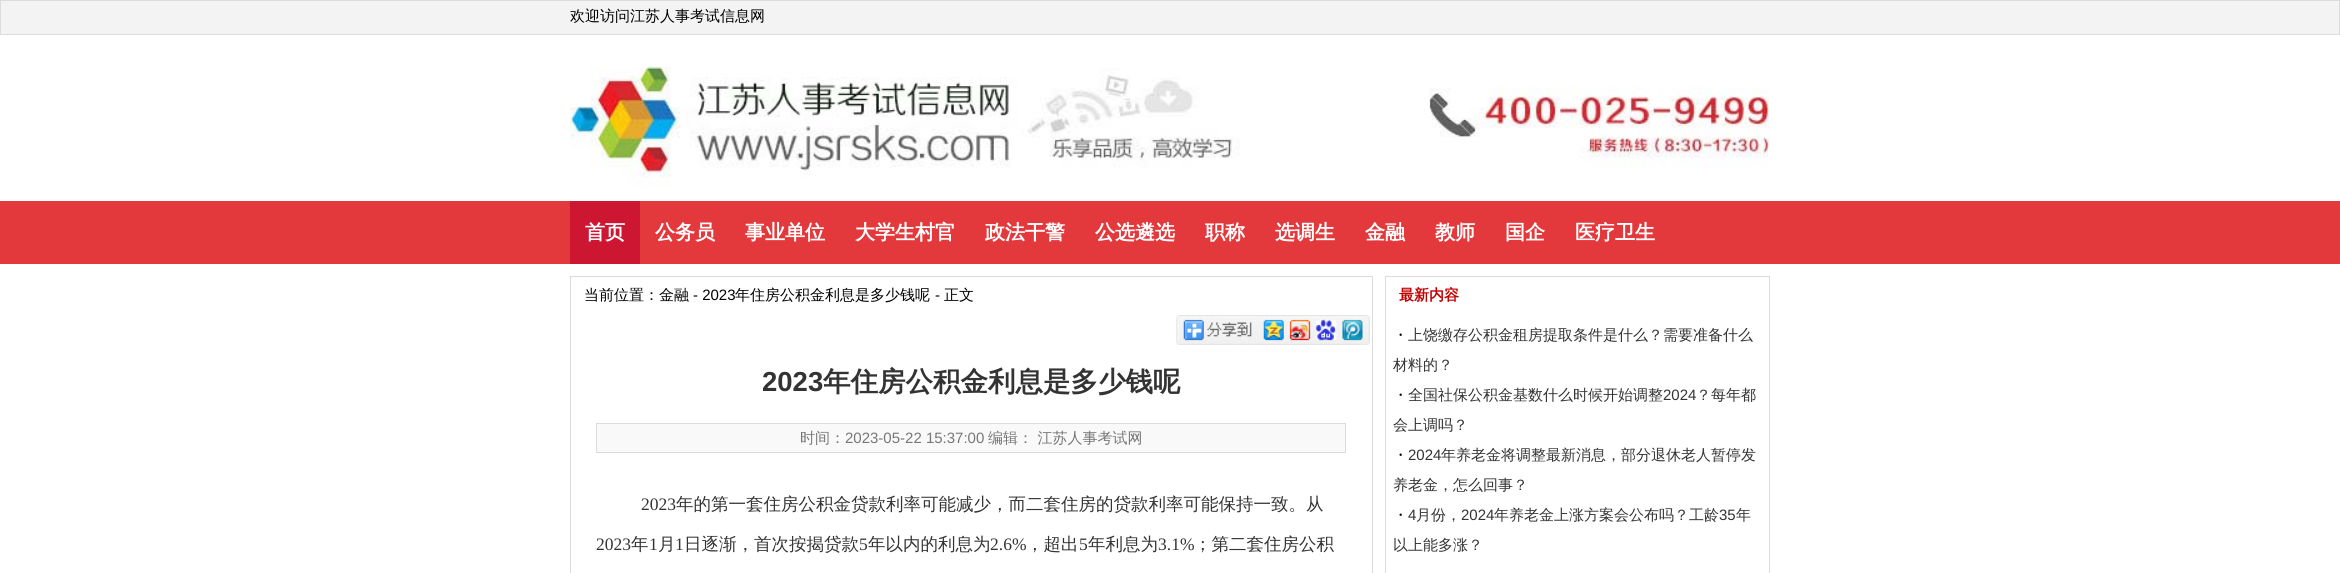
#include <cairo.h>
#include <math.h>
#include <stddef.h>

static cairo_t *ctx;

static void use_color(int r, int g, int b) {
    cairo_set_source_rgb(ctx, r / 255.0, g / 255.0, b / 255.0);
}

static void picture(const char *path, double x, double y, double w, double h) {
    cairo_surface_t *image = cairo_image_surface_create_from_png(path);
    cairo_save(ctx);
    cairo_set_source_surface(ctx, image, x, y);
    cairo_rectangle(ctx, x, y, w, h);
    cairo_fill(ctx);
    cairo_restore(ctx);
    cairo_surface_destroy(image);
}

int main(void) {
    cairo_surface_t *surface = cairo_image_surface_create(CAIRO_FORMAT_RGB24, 2340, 573);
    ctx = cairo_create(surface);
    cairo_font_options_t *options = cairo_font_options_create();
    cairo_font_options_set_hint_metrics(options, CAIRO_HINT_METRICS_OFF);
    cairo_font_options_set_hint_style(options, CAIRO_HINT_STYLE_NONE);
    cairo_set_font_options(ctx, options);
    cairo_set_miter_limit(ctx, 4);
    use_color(255, 255, 255);
    cairo_paint(ctx);
    use_color(243, 243, 243);
    cairo_rectangle(ctx, 0.5, 0.5, 2339, 34);
    cairo_fill_preserve(ctx);
    use_color(220, 220, 220);
    cairo_set_line_width(ctx, 1);
    cairo_stroke(ctx);
    cairo_select_font_face(ctx, "WenQuanYi Zen Hei Medium", CAIRO_FONT_SLANT_NORMAL, CAIRO_FONT_WEIGHT_NORMAL);
    cairo_set_font_size(ctx, 15);
    use_color(0, 0, 0);
    cairo_move_to(ctx, 570, 21);
    cairo_show_text(ctx, "欢迎访问江苏人事考试信息网");
    picture("img1.png", 570, 66, 1199, 122);
    use_color(228, 57, 60);
    cairo_rectangle(ctx, 0, 201, 2340, 63);
    cairo_fill(ctx);
    use_color(204, 22, 50);
    cairo_rectangle(ctx, 570, 201, 70, 63);
    cairo_fill(ctx);
    cairo_select_font_face(ctx, "WenQuanYi Zen Hei", CAIRO_FONT_SLANT_NORMAL, CAIRO_FONT_WEIGHT_BOLD);
    cairo_set_font_size(ctx, 20);
    use_color(255, 255, 255);
    cairo_move_to(ctx, 585, 239);
    cairo_show_text(ctx, "首页");
    cairo_move_to(ctx, 655, 239);
    cairo_show_text(ctx, "公务员");
    cairo_move_to(ctx, 745, 239);
    cairo_show_text(ctx, "事业单位");
    cairo_move_to(ctx, 855, 239);
    cairo_show_text(ctx, "大学生村官");
    cairo_move_to(ctx, 985, 239);
    cairo_show_text(ctx, "政法干警");
    cairo_move_to(ctx, 1095, 239);
    cairo_show_text(ctx, "公选遴选");
    cairo_move_to(ctx, 1205, 239);
    cairo_show_text(ctx, "职称");
    cairo_move_to(ctx, 1275, 239);
    cairo_show_text(ctx, "选调生");
    cairo_move_to(ctx, 1365, 239);
    cairo_show_text(ctx, "金融");
    cairo_move_to(ctx, 1435, 239);
    cairo_show_text(ctx, "教师");
    cairo_move_to(ctx, 1505, 239);
    cairo_show_text(ctx, "国企");
    cairo_move_to(ctx, 1575, 239);
    cairo_show_text(ctx, "医疗卫生");
    cairo_rectangle(ctx, 570.5, 276.5, 802, 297);
    use_color(220, 220, 220);
    cairo_stroke(ctx);
    cairo_select_font_face(ctx, "WenQuanYi Zen Hei Medium", CAIRO_FONT_SLANT_NORMAL, CAIRO_FONT_WEIGHT_NORMAL);
    cairo_set_font_size(ctx, 15);
    use_color(0, 0, 0);
    cairo_move_to(ctx, 584, 300);
    cairo_show_text(ctx, "当前位置：金融");
    cairo_select_font_face(ctx, "Liberation Sans", CAIRO_FONT_SLANT_NORMAL, CAIRO_FONT_WEIGHT_NORMAL);
    cairo_move_to(ctx, 693, 300);
    cairo_show_text(ctx, "- 2023");
    cairo_select_font_face(ctx, "WenQuanYi Zen Hei Medium", CAIRO_FONT_SLANT_NORMAL, CAIRO_FONT_WEIGHT_NORMAL);
    cairo_move_to(ctx, 735, 300);
    cairo_show_text(ctx, "年住房公积金利息是多少钱呢");
    cairo_select_font_face(ctx, "Liberation Sans", CAIRO_FONT_SLANT_NORMAL, CAIRO_FONT_WEIGHT_NORMAL);
    cairo_move_to(ctx, 935, 300);
    cairo_show_text(ctx, "-");
    cairo_select_font_face(ctx, "WenQuanYi Zen Hei Medium", CAIRO_FONT_SLANT_NORMAL, CAIRO_FONT_WEIGHT_NORMAL);
    cairo_move_to(ctx, 944, 300);
    cairo_show_text(ctx, "正文");
    picture("img2.png", 1176, 315, 194, 30);
    cairo_select_font_face(ctx, "Liberation Sans", CAIRO_FONT_SLANT_NORMAL, CAIRO_FONT_WEIGHT_BOLD);
    cairo_set_font_size(ctx, 27.5);
    use_color(51, 51, 51);
    cairo_move_to(ctx, 762, 391);
    cairo_show_text(ctx, "2023");
    cairo_select_font_face(ctx, "WenQuanYi Zen Hei", CAIRO_FONT_SLANT_NORMAL, CAIRO_FONT_WEIGHT_BOLD);
    cairo_move_to(ctx, 823, 391);
    cairo_show_text(ctx, "年住房公积金利息是多少钱呢");
    use_color(249, 249, 249);
    cairo_rectangle(ctx, 596.5, 423.5, 749, 29);
    cairo_fill_preserve(ctx);
    use_color(220, 220, 220);
    cairo_stroke(ctx);
    cairo_select_font_face(ctx, "WenQuanYi Zen Hei Medium", CAIRO_FONT_SLANT_NORMAL, CAIRO_FONT_WEIGHT_NORMAL);
    cairo_set_font_size(ctx, 15);
    use_color(119, 119, 119);
    cairo_move_to(ctx, 800, 443);
    cairo_show_text(ctx, "时间：");
    cairo_select_font_face(ctx, "Liberation Sans", CAIRO_FONT_SLANT_NORMAL, CAIRO_FONT_WEIGHT_NORMAL);
    cairo_move_to(ctx, 845, 443);
    cairo_show_text(ctx, "2023-05-22 15:37:00");
    cairo_select_font_face(ctx, "WenQuanYi Zen Hei Medium", CAIRO_FONT_SLANT_NORMAL, CAIRO_FONT_WEIGHT_NORMAL);
    cairo_move_to(ctx, 988, 443);
    cairo_show_text(ctx, "编辑： 江苏人事考试网");
    cairo_select_font_face(ctx, "Liberation Serif", CAIRO_FONT_SLANT_NORMAL, CAIRO_FONT_WEIGHT_NORMAL);
    cairo_set_font_size(ctx, 17.5);
    use_color(51, 51, 51);
    cairo_move_to(ctx, 641, 510);
    cairo_show_text(ctx, "2023");
    cairo_select_font_face(ctx, "WenQuanYi Zen Hei Medium", CAIRO_FONT_SLANT_NORMAL, CAIRO_FONT_WEIGHT_NORMAL);
    cairo_move_to(ctx, 676, 510);
    cairo_show_text(ctx, "年的第一套住房公积金贷款利率可能减少，而二套住房的贷款利率可能保持一致。从");
    cairo_select_font_face(ctx, "Liberation Serif", CAIRO_FONT_SLANT_NORMAL, CAIRO_FONT_WEIGHT_NORMAL);
    cairo_move_to(ctx, 596, 550);
    cairo_show_text(ctx, "2023");
    cairo_select_font_face(ctx, "WenQuanYi Zen Hei Medium", CAIRO_FONT_SLANT_NORMAL, CAIRO_FONT_WEIGHT_NORMAL);
    cairo_move_to(ctx, 631, 550);
    cairo_show_text(ctx, "年");
    cairo_select_font_face(ctx, "Liberation Serif", CAIRO_FONT_SLANT_NORMAL, CAIRO_FONT_WEIGHT_NORMAL);
    cairo_move_to(ctx, 649, 550);
    cairo_show_text(ctx, "1");
    cairo_select_font_face(ctx, "WenQuanYi Zen Hei Medium", CAIRO_FONT_SLANT_NORMAL, CAIRO_FONT_WEIGHT_NORMAL);
    cairo_move_to(ctx, 658, 550);
    cairo_show_text(ctx, "月");
    cairo_select_font_face(ctx, "Liberation Serif", CAIRO_FONT_SLANT_NORMAL, CAIRO_FONT_WEIGHT_NORMAL);
    cairo_move_to(ctx, 675, 550);
    cairo_show_text(ctx, "1");
    cairo_select_font_face(ctx, "WenQuanYi Zen Hei Medium", CAIRO_FONT_SLANT_NORMAL, CAIRO_FONT_WEIGHT_NORMAL);
    cairo_move_to(ctx, 684, 550);
    cairo_show_text(ctx, "日逐渐，首次按揭贷款");
    cairo_select_font_face(ctx, "Liberation Serif", CAIRO_FONT_SLANT_NORMAL, CAIRO_FONT_WEIGHT_NORMAL);
    cairo_move_to(ctx, 859, 550);
    cairo_show_text(ctx, "5");
    cairo_select_font_face(ctx, "WenQuanYi Zen Hei Medium", CAIRO_FONT_SLANT_NORMAL, CAIRO_FONT_WEIGHT_NORMAL);
    cairo_move_to(ctx, 868, 550);
    cairo_show_text(ctx, "年以内的利息为");
    cairo_select_font_face(ctx, "Liberation Serif", CAIRO_FONT_SLANT_NORMAL, CAIRO_FONT_WEIGHT_NORMAL);
    cairo_move_to(ctx, 990, 550);
    cairo_show_text(ctx, "2.6%");
    cairo_select_font_face(ctx, "WenQuanYi Zen Hei Medium", CAIRO_FONT_SLANT_NORMAL, CAIRO_FONT_WEIGHT_NORMAL);
    cairo_move_to(ctx, 1026, 550);
    cairo_show_text(ctx, "，超出");
    cairo_select_font_face(ctx, "Liberation Serif", CAIRO_FONT_SLANT_NORMAL, CAIRO_FONT_WEIGHT_NORMAL);
    cairo_move_to(ctx, 1079, 550);
    cairo_show_text(ctx, "5");
    cairo_select_font_face(ctx, "WenQuanYi Zen Hei Medium", CAIRO_FONT_SLANT_NORMAL, CAIRO_FONT_WEIGHT_NORMAL);
    cairo_move_to(ctx, 1088, 550);
    cairo_show_text(ctx, "年利息为");
    cairo_select_font_face(ctx, "Liberation Serif", CAIRO_FONT_SLANT_NORMAL, CAIRO_FONT_WEIGHT_NORMAL);
    cairo_move_to(ctx, 1158, 550);
    cairo_show_text(ctx, "3.1%");
    cairo_select_font_face(ctx, "WenQuanYi Zen Hei Medium", CAIRO_FONT_SLANT_NORMAL, CAIRO_FONT_WEIGHT_NORMAL);
    cairo_move_to(ctx, 1194, 550);
    cairo_show_text(ctx, "；第二套住房公积");
    cairo_rectangle(ctx, 1385.5, 276.5, 384, 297);
    use_color(220, 220, 220);
    cairo_stroke(ctx);
    cairo_select_font_face(ctx, "WenQuanYi Zen Hei", CAIRO_FONT_SLANT_NORMAL, CAIRO_FONT_WEIGHT_BOLD);
    cairo_set_font_size(ctx, 15);
    use_color(193, 0, 0);
    cairo_move_to(ctx, 1399, 300);
    cairo_show_text(ctx, "最新内容");
    cairo_select_font_face(ctx, "WenQuanYi Zen Hei Medium", CAIRO_FONT_SLANT_NORMAL, CAIRO_FONT_WEIGHT_NORMAL);
    use_color(0, 0, 0);
    cairo_move_to(ctx, 1393, 340);
    cairo_show_text(ctx, "・");
    use_color(51, 51, 51);
    cairo_move_to(ctx, 1408, 340);
    cairo_show_text(ctx, "上饶缴存公积金租房提取条件是什么？需要准备什么");
    cairo_move_to(ctx, 1393, 370);
    cairo_show_text(ctx, "材料的？");
    use_color(0, 0, 0);
    cairo_move_to(ctx, 1393, 400);
    cairo_show_text(ctx, "・");
    use_color(51, 51, 51);
    cairo_move_to(ctx, 1408, 400);
    cairo_show_text(ctx, "全国社保公积金基数什么时候开始调整");
    cairo_select_font_face(ctx, "Liberation Sans", CAIRO_FONT_SLANT_NORMAL, CAIRO_FONT_WEIGHT_NORMAL);
    cairo_move_to(ctx, 1663, 400);
    cairo_show_text(ctx, "2024");
    cairo_select_font_face(ctx, "WenQuanYi Zen Hei Medium", CAIRO_FONT_SLANT_NORMAL, CAIRO_FONT_WEIGHT_NORMAL);
    cairo_move_to(ctx, 1696, 400);
    cairo_show_text(ctx, "？每年都");
    cairo_move_to(ctx, 1393, 430);
    cairo_show_text(ctx, "会上调吗？");
    use_color(0, 0, 0);
    cairo_move_to(ctx, 1393, 460);
    cairo_show_text(ctx, "・");
    cairo_select_font_face(ctx, "Liberation Sans", CAIRO_FONT_SLANT_NORMAL, CAIRO_FONT_WEIGHT_NORMAL);
    use_color(51, 51, 51);
    cairo_move_to(ctx, 1408, 460);
    cairo_show_text(ctx, "2024");
    cairo_select_font_face(ctx, "WenQuanYi Zen Hei Medium", CAIRO_FONT_SLANT_NORMAL, CAIRO_FONT_WEIGHT_NORMAL);
    cairo_move_to(ctx, 1441, 460);
    cairo_show_text(ctx, "年养老金将调整最新消息，部分退休老人暂停发");
    cairo_move_to(ctx, 1393, 490);
    cairo_show_text(ctx, "养老金，怎么回事？");
    use_color(0, 0, 0);
    cairo_move_to(ctx, 1393, 520);
    cairo_show_text(ctx, "・");
    cairo_select_font_face(ctx, "Liberation Sans", CAIRO_FONT_SLANT_NORMAL, CAIRO_FONT_WEIGHT_NORMAL);
    use_color(51, 51, 51);
    cairo_move_to(ctx, 1408, 520);
    cairo_show_text(ctx, "4");
    cairo_select_font_face(ctx, "WenQuanYi Zen Hei Medium", CAIRO_FONT_SLANT_NORMAL, CAIRO_FONT_WEIGHT_NORMAL);
    cairo_move_to(ctx, 1416, 520);
    cairo_show_text(ctx, "月份，");
    cairo_select_font_face(ctx, "Liberation Sans", CAIRO_FONT_SLANT_NORMAL, CAIRO_FONT_WEIGHT_NORMAL);
    cairo_move_to(ctx, 1461, 520);
    cairo_show_text(ctx, "2024");
    cairo_select_font_face(ctx, "WenQuanYi Zen Hei Medium", CAIRO_FONT_SLANT_NORMAL, CAIRO_FONT_WEIGHT_NORMAL);
    cairo_move_to(ctx, 1494, 520);
    cairo_show_text(ctx, "年养老金上涨方案会公布吗？工龄");
    cairo_select_font_face(ctx, "Liberation Sans", CAIRO_FONT_SLANT_NORMAL, CAIRO_FONT_WEIGHT_NORMAL);
    cairo_move_to(ctx, 1719, 520);
    cairo_show_text(ctx, "35");
    cairo_select_font_face(ctx, "WenQuanYi Zen Hei Medium", CAIRO_FONT_SLANT_NORMAL, CAIRO_FONT_WEIGHT_NORMAL);
    cairo_move_to(ctx, 1736, 520);
    cairo_show_text(ctx, "年");
    cairo_move_to(ctx, 1393, 550);
    cairo_show_text(ctx, "以上能多涨？");
    cairo_surface_write_to_png(surface, "result.png");
    cairo_font_options_destroy(options);
    cairo_destroy(ctx);
    cairo_surface_destroy(surface);
    return 0;
}
